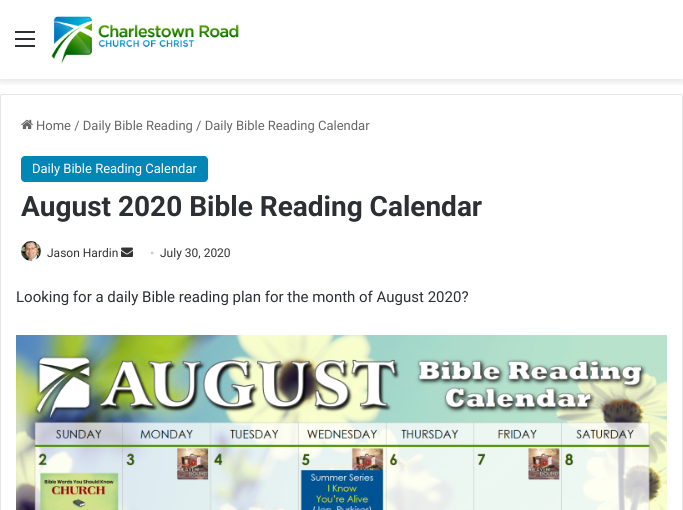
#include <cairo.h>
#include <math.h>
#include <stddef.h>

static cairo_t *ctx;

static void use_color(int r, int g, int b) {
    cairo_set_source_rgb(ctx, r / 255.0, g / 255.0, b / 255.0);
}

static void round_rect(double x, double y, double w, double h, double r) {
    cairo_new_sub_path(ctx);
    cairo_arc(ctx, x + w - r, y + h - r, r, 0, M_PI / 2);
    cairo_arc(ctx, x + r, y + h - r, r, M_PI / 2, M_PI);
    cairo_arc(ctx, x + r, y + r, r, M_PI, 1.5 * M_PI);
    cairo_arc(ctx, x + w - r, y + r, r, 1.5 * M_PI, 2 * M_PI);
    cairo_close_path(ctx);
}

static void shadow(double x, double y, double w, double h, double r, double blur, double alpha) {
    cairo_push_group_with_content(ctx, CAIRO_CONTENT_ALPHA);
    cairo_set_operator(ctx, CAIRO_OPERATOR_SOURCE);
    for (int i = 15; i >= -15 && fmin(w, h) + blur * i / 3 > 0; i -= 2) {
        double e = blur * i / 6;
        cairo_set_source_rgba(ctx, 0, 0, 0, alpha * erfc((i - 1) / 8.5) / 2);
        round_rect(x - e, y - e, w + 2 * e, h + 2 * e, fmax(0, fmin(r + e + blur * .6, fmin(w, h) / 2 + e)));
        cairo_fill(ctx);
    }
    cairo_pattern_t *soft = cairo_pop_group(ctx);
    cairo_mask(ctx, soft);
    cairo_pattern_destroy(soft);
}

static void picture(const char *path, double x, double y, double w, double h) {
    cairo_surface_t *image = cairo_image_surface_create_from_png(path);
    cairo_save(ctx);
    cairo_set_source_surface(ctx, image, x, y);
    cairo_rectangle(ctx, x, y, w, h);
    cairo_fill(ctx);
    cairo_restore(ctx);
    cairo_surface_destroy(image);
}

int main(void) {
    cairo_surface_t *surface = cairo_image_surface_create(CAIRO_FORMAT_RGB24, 683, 510);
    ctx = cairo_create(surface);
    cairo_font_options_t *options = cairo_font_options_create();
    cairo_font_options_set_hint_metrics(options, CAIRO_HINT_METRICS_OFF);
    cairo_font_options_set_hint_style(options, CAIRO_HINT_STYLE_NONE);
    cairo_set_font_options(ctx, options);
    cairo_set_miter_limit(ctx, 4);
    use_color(255, 255, 255);
    cairo_paint(ctx);
    cairo_save(ctx);
    cairo_rectangle(ctx, 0, 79, 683, 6);
    cairo_clip(ctx);
    use_color(0, 0, 0);
    shadow(0, 3, 683, 79, 0, 3.5, 0.1);
    cairo_restore(ctx);
    use_color(44, 47, 52);
    cairo_rectangle(ctx, 15, 38, 20, 2);
    cairo_fill(ctx);
    cairo_rectangle(ctx, 15, 31, 20, 2);
    cairo_fill(ctx);
    cairo_rectangle(ctx, 15, 45, 20, 2);
    cairo_fill(ctx);
    picture("img1.png", 51, 16, 188, 48);
    round_rect(0.5, 94.5, 682, 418, 1.5);
    use_color(230, 230, 230);
    cairo_set_line_width(ctx, 1);
    cairo_stroke(ctx);
    picture("img2.png", 21, 119, 12, 11);
    cairo_select_font_face(ctx, "Roboto", CAIRO_FONT_SLANT_NORMAL, CAIRO_FONT_WEIGHT_NORMAL);
    cairo_set_font_size(ctx, 13);
    use_color(102, 102, 102);
    cairo_move_to(ctx, 36, 130);
    cairo_show_text(ctx, "Home / Daily Bible Reading / Daily Bible Reading Calendar");
    use_color(0, 135, 182);
    round_rect(21, 156, 187, 26, 4);
    cairo_fill(ctx);
    use_color(255, 255, 255);
    cairo_move_to(ctx, 32, 173);
    cairo_show_text(ctx, "Daily Bible Reading Calendar");
    cairo_select_font_face(ctx, "Roboto", CAIRO_FONT_SLANT_NORMAL, CAIRO_FONT_WEIGHT_BOLD);
    cairo_set_font_size(ctx, 28);
    use_color(44, 47, 52);
    cairo_move_to(ctx, 21, 216);
    cairo_show_text(ctx, "August 2020 Bible Reading Calendar");
    picture("img3.png", 21, 241, 20, 20);
    cairo_select_font_face(ctx, "Roboto", CAIRO_FONT_SLANT_NORMAL, CAIRO_FONT_WEIGHT_NORMAL);
    cairo_set_font_size(ctx, 12);
    use_color(51, 51, 51);
    cairo_move_to(ctx, 47, 257);
    cairo_show_text(ctx, "Jason Hardin");
    picture("img4.png", 121, 247, 12, 10);
    cairo_select_font_face(ctx, "Liberation Serif", CAIRO_FONT_SLANT_NORMAL, CAIRO_FONT_WEIGHT_NORMAL);
    use_color(204, 204, 204);
    cairo_move_to(ctx, 150, 257);
    cairo_show_text(ctx, "•");
    cairo_select_font_face(ctx, "Roboto", CAIRO_FONT_SLANT_NORMAL, CAIRO_FONT_WEIGHT_NORMAL);
    use_color(51, 51, 51);
    cairo_move_to(ctx, 160, 257);
    cairo_show_text(ctx, "July 30, 2020");
    cairo_set_font_size(ctx, 15);
    use_color(44, 47, 52);
    cairo_move_to(ctx, 16, 302);
    cairo_show_text(ctx, "Looking for a daily Bible reading plan for the month of August 2020?");
    picture("img5.png", 16, 335, 651, 175);
    cairo_surface_write_to_png(surface, "result.png");
    cairo_font_options_destroy(options);
    cairo_destroy(ctx);
    cairo_surface_destroy(surface);
    return 0;
}
